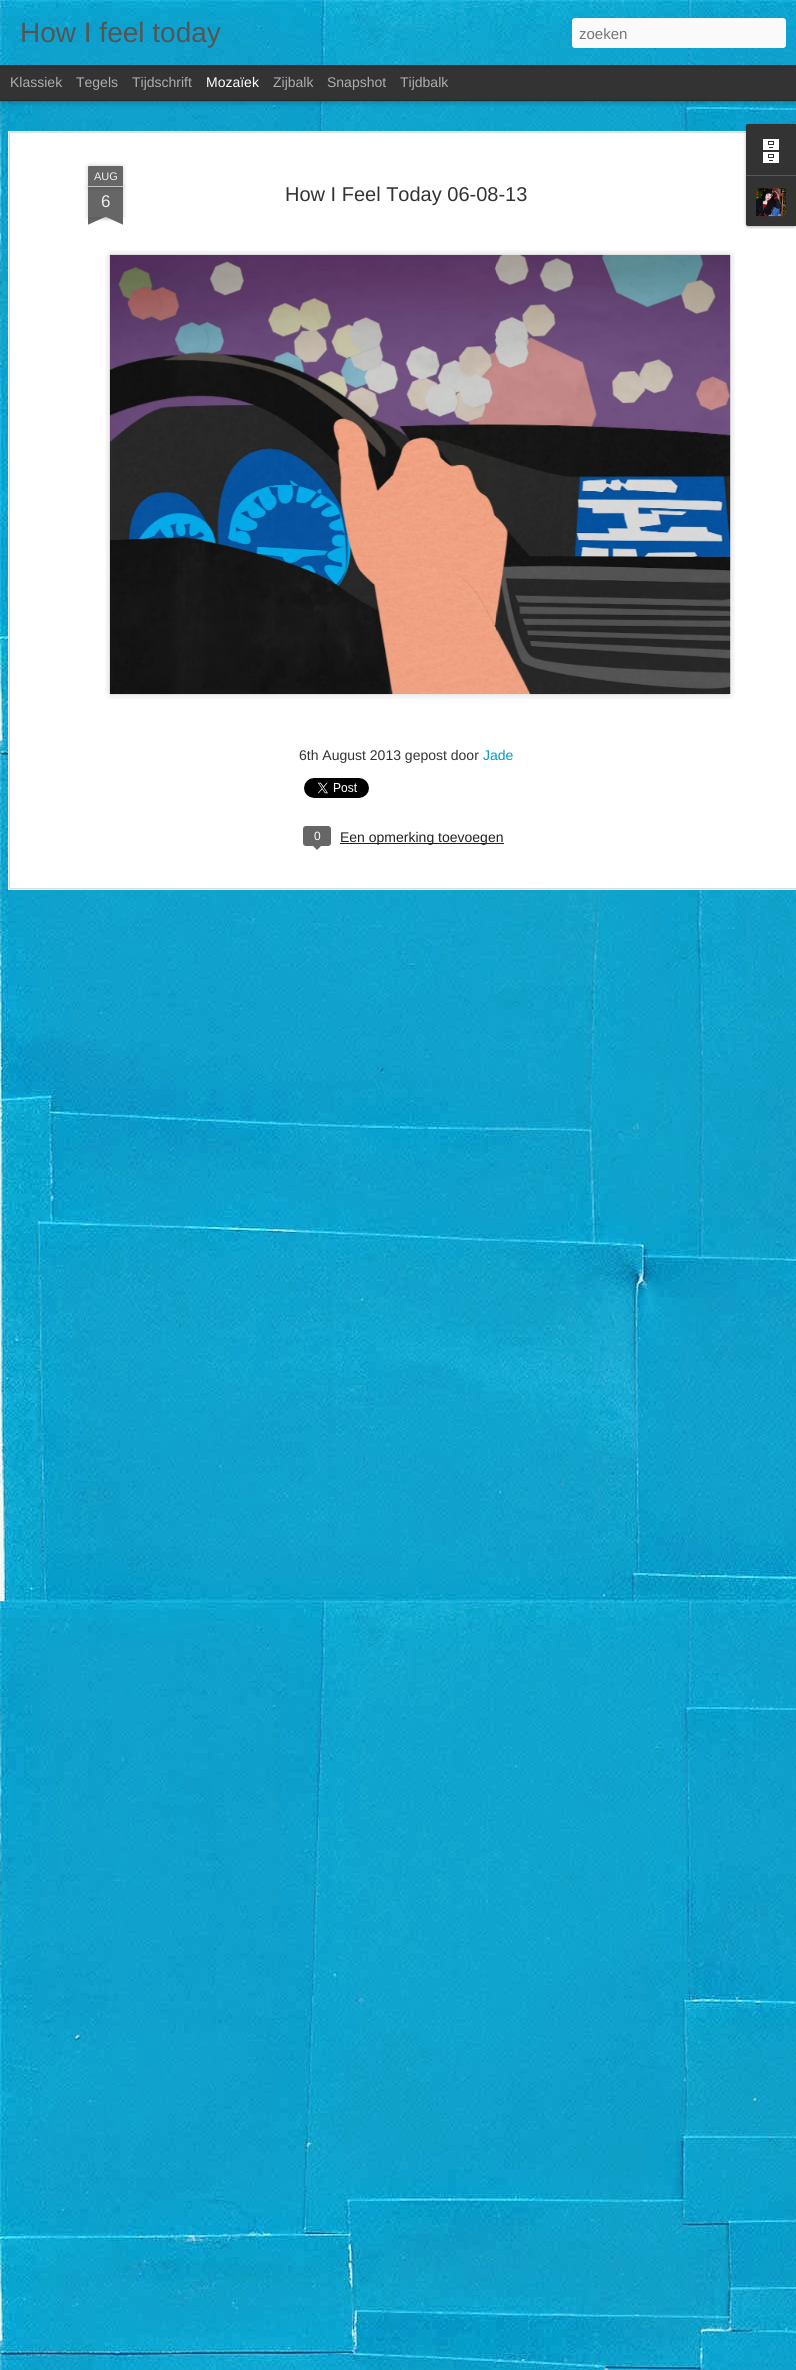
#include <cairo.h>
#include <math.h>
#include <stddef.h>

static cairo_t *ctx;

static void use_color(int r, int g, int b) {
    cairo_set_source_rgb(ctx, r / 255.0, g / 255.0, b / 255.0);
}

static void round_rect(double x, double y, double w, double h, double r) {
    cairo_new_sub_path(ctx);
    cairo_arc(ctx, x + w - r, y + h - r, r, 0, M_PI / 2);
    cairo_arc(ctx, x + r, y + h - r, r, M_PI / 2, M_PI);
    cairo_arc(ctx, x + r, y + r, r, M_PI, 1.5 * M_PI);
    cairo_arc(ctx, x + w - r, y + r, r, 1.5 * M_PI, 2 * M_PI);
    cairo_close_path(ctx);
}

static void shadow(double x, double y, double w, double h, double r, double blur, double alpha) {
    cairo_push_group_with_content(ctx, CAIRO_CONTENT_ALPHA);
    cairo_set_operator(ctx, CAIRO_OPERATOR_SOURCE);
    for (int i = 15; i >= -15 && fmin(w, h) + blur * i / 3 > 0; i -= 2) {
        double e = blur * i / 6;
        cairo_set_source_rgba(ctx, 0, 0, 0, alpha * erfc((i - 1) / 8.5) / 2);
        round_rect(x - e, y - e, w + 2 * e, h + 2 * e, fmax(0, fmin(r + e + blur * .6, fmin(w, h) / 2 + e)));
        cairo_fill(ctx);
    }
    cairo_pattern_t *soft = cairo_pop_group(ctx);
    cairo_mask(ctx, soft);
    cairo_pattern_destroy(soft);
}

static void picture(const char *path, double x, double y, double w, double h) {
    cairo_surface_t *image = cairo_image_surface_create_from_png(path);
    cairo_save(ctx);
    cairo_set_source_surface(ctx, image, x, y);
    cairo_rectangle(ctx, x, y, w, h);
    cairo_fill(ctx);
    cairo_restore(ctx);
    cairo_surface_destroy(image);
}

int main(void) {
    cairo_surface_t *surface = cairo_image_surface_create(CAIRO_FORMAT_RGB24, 796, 2370);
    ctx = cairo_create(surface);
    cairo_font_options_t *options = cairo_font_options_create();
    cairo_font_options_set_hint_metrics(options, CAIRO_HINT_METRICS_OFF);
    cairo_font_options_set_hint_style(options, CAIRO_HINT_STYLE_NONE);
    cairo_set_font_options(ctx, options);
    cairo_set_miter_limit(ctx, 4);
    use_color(51, 51, 51);
    cairo_paint(ctx);
    picture("img2.png", 0, 101, 796, 2269);
    use_color(0, 0, 0);
    shadow(0, 65, 796, 35, 0, 4, 0.5);
    use_color(51, 51, 51);
    cairo_rectangle(ctx, 0, 65, 796, 35);
    cairo_fill(ctx);
    use_color(0, 0, 0);
    shadow(0, 0, 796, 65, 0, 2.5, 0.3);
    picture("img1.png", 0, 0, 796, 65);
    cairo_select_font_face(ctx, "Liberation Sans", CAIRO_FONT_SLANT_NORMAL, CAIRO_FONT_WEIGHT_NORMAL);
    cairo_set_font_size(ctx, 28);
    use_color(85, 85, 85);
    cairo_move_to(ctx, 20, 42);
    cairo_show_text(ctx, "How I feel today");
    use_color(250, 250, 250);
    round_rect(572, 18, 214, 30, 3);
    cairo_fill(ctx);
    cairo_set_font_size(ctx, 15);
    use_color(117, 117, 117);
    cairo_move_to(ctx, 579, 39);
    cairo_show_text(ctx, "zoeken");
    cairo_set_font_size(ctx, 14);
    use_color(173, 173, 173);
    cairo_move_to(ctx, 10, 87);
    cairo_show_text(ctx, "Klassiek");
    cairo_move_to(ctx, 76, 87);
    cairo_show_text(ctx, "Tegels");
    cairo_move_to(ctx, 132, 87);
    cairo_show_text(ctx, "Tijdschrift");
    use_color(255, 255, 255);
    cairo_move_to(ctx, 206, 87);
    cairo_show_text(ctx, "Mozaïek");
    use_color(173, 173, 173);
    cairo_move_to(ctx, 273, 87);
    cairo_show_text(ctx, "Zijbalk");
    cairo_move_to(ctx, 327, 87);
    cairo_show_text(ctx, "Snapshot");
    cairo_move_to(ctx, 400, 87);
    cairo_show_text(ctx, "Tijdbalk");
    use_color(255, 255, 255);
    cairo_rectangle(ctx, 8, 131, 788, 759);
    cairo_fill(ctx);
    picture("img3.png", 8, 131, 788, 759);
    use_color(0, 0, 0);
    shadow(88, 187, 35, 30, 0, 2.5, 0.2);
    use_color(102, 102, 102);
    cairo_rectangle(ctx, 88, 187, 35, 30);
    cairo_fill(ctx);
    use_color(0, 0, 0);
    shadow(88, 166, 35, 21, 1, 2.5, 0.2);
    use_color(102, 102, 102);
    cairo_new_path(ctx);
    cairo_move_to(ctx, 89, 166);
    cairo_line_to(ctx, 122, 166);
    cairo_curve_to(ctx, 122.5, 166, 123, 166.5, 123, 167);
    cairo_line_to(ctx, 123, 187);
    cairo_line_to(ctx, 88, 187);
    cairo_line_to(ctx, 88, 167);
    cairo_curve_to(ctx, 88, 166.5, 88.5, 166, 89, 166);
    cairo_close_path(ctx);
    cairo_fill(ctx);
    use_color(194, 194, 194);
    cairo_rectangle(ctx, 88, 186, 35, 1);
    cairo_fill(ctx);
    cairo_set_font_size(ctx, 11);
    use_color(238, 238, 238);
    cairo_move_to(ctx, 94, 180);
    cairo_show_text(ctx, "AUG");
    cairo_set_font_size(ctx, 17);
    cairo_move_to(ctx, 101, 207);
    cairo_show_text(ctx, "6");
    cairo_save(ctx);
    cairo_rectangle(ctx, 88, 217, 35, 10);
    cairo_clip(ctx);
    use_color(0, 0, 0);
    shadow(79, 207, 50, 10, 0, 2.5, 0.2);
    cairo_restore(ctx);
    cairo_save(ctx);
    cairo_rectangle(ctx, 88, 217, 35, 10);
    cairo_clip(ctx);
    use_color(102, 102, 102);
    cairo_new_path(ctx);
    cairo_move_to(ctx, 79, 218);
    cairo_line_to(ctx, 125, 197);
    cairo_line_to(ctx, 129, 206);
    cairo_line_to(ctx, 83, 227);
    cairo_close_path(ctx);
    cairo_fill(ctx);
    cairo_restore(ctx);
    cairo_save(ctx);
    cairo_rectangle(ctx, 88, 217, 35, 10);
    cairo_clip(ctx);
    use_color(0, 0, 0);
    shadow(82, 207, 50, 10, 0, 2.5, 0.2);
    cairo_restore(ctx);
    cairo_save(ctx);
    cairo_rectangle(ctx, 88, 217, 35, 10);
    cairo_clip(ctx);
    use_color(102, 102, 102);
    cairo_new_path(ctx);
    cairo_move_to(ctx, 86, 197);
    cairo_line_to(ctx, 132, 218);
    cairo_line_to(ctx, 128, 227);
    cairo_line_to(ctx, 82, 206);
    cairo_close_path(ctx);
    cairo_fill(ctx);
    cairo_restore(ctx);
    cairo_set_font_size(ctx, 20);
    use_color(51, 51, 51);
    cairo_move_to(ctx, 285, 201);
    cairo_show_text(ctx, "How I Feel Today 06-08-13");
    picture("img4.png", 105, 250, 630, 449);
    picture("img5.png", 109, 254, 622, 441);
    cairo_set_font_size(ctx, 14);
    cairo_move_to(ctx, 299, 760);
    cairo_show_text(ctx, "6th August 2013 gepost door");
    use_color(0, 158, 184);
    cairo_move_to(ctx, 483, 760);
    cairo_show_text(ctx, "Jade");
    picture("img6.png", 304, 778, 65, 20);
    use_color(102, 102, 102);
    round_rect(303.5, 826.5, 27, 19, 2.5);
    cairo_fill_preserve(ctx);
    cairo_set_line_width(ctx, 1);
    cairo_stroke(ctx);
    cairo_set_font_size(ctx, 12);
    use_color(255, 255, 255);
    cairo_move_to(ctx, 314, 840);
    cairo_show_text(ctx, "0");
    use_color(102, 102, 102);
    cairo_new_path(ctx);
    cairo_move_to(ctx, 312, 845);
    cairo_line_to(ctx, 322, 845);
    cairo_line_to(ctx, 317, 850);
    cairo_close_path(ctx);
    cairo_fill(ctx);
    use_color(34, 34, 34);
    cairo_rectangle(ctx, 340, 843, 164, 1);
    cairo_fill(ctx);
    cairo_set_font_size(ctx, 14);
    cairo_move_to(ctx, 340, 842);
    cairo_show_text(ctx, "Een opmerking toevoegen");
    use_color(0, 0, 0);
    shadow(746, 125, 50, 102, 2, 1.5, 0.3);
    use_color(51, 51, 51);
    cairo_new_path(ctx);
    cairo_move_to(ctx, 748, 124);
    cairo_line_to(ctx, 796, 124);
    cairo_line_to(ctx, 796, 175);
    cairo_line_to(ctx, 746, 175);
    cairo_line_to(ctx, 746, 126);
    cairo_curve_to(ctx, 746, 125, 747, 124, 748, 124);
    cairo_close_path(ctx);
    cairo_fill(ctx);
    picture("img7.png", 763, 139, 16, 24);
    cairo_new_path(ctx);
    cairo_move_to(ctx, 746, 175);
    cairo_line_to(ctx, 796, 175);
    cairo_line_to(ctx, 796, 226);
    cairo_line_to(ctx, 748, 226);
    cairo_curve_to(ctx, 747, 226, 746, 225, 746, 224);
    cairo_close_path(ctx);
    cairo_fill(ctx);
    use_color(88, 88, 88);
    cairo_rectangle(ctx, 746, 175, 50, 1);
    cairo_fill(ctx);
    picture("img8.png", 756, 188, 30, 29);
    cairo_surface_write_to_png(surface, "result.png");
    cairo_font_options_destroy(options);
    cairo_destroy(ctx);
    cairo_surface_destroy(surface);
    return 0;
}
